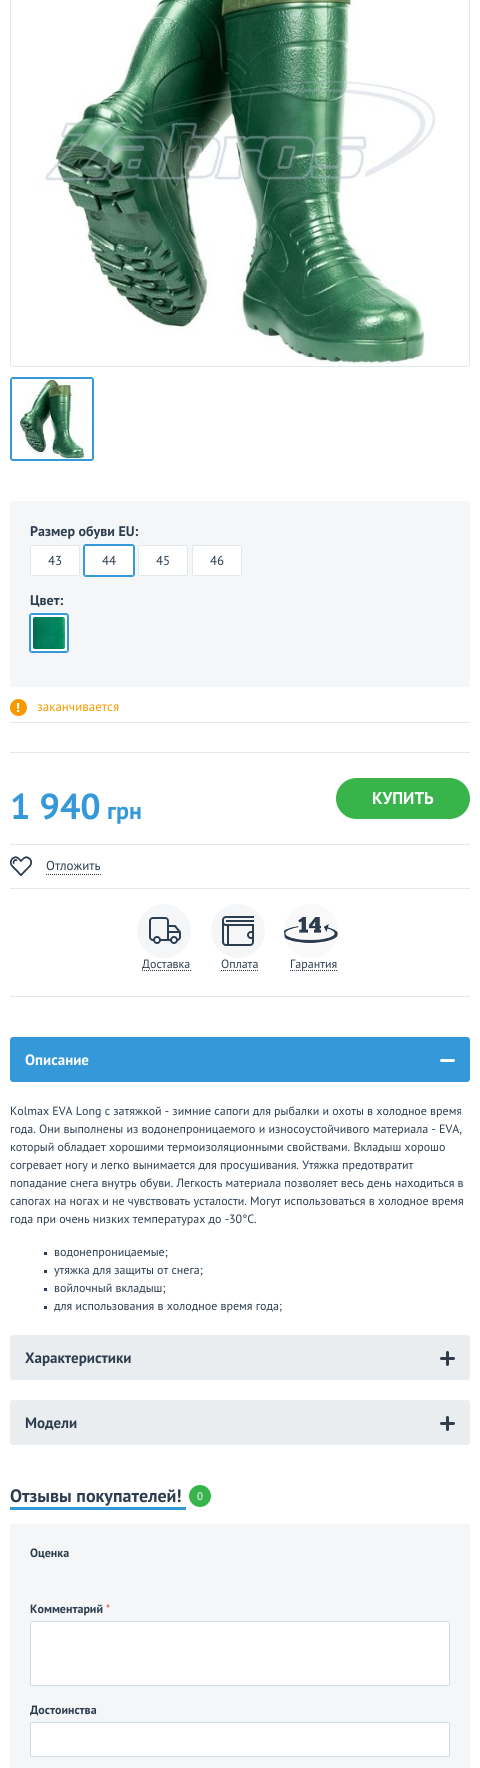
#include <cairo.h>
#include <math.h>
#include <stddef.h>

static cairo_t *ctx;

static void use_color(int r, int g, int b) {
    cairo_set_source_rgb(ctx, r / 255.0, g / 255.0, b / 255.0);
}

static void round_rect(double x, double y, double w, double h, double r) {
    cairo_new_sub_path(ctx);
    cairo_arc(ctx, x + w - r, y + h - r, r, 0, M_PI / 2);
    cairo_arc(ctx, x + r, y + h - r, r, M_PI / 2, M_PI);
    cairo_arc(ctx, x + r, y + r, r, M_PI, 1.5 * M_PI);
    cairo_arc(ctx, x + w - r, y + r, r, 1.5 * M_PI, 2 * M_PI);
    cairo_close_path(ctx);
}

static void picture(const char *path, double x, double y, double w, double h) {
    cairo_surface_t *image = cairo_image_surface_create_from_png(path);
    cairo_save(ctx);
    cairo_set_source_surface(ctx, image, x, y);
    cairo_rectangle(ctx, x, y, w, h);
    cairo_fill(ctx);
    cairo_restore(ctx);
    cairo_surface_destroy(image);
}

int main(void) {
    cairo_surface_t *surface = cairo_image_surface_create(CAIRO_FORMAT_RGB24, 480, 1768);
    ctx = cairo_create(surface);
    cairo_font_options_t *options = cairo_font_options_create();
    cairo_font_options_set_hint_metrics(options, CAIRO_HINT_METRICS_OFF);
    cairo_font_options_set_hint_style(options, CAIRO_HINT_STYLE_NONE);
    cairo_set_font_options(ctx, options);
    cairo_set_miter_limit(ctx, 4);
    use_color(255, 255, 255);
    cairo_paint(ctx);
    round_rect(10.5, -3.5, 459, 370, 2.5);
    use_color(225, 232, 236);
    cairo_set_line_width(ctx, 1);
    cairo_stroke(ctx);
    picture("img1.png", 11, 0, 458, 366);
    round_rect(11, 378, 82, 82, 2);
    use_color(53, 152, 217);
    cairo_set_line_width(ctx, 2);
    cairo_stroke(ctx);
    picture("img2.png", 12, 379, 80, 80);
    use_color(244, 246, 248);
    round_rect(10, 501, 460, 186, 3);
    cairo_fill(ctx);
    cairo_select_font_face(ctx, "PT Sans", CAIRO_FONT_SLANT_NORMAL, CAIRO_FONT_WEIGHT_BOLD);
    cairo_set_font_size(ctx, 14);
    use_color(43, 61, 79);
    cairo_move_to(ctx, 30, 536);
    cairo_show_text(ctx, "Размер обуви EU:");
    use_color(255, 255, 255);
    round_rect(30.5, 545.5, 49, 30, 1.5);
    cairo_fill_preserve(ctx);
    use_color(225, 232, 236);
    cairo_set_line_width(ctx, 1);
    cairo_stroke(ctx);
    cairo_select_font_face(ctx, "PT Sans", CAIRO_FONT_SLANT_NORMAL, CAIRO_FONT_WEIGHT_NORMAL);
    cairo_set_font_size(ctx, 13);
    use_color(43, 61, 79);
    cairo_move_to(ctx, 48, 565);
    cairo_show_text(ctx, "43");
    round_rect(83.5, 544.5, 51, 32, 2.5);
    use_color(53, 152, 217);
    cairo_stroke(ctx);
    use_color(255, 255, 255);
    round_rect(84.5, 545.5, 49, 30, 1.5);
    cairo_fill_preserve(ctx);
    use_color(53, 152, 217);
    cairo_stroke(ctx);
    use_color(43, 61, 79);
    cairo_move_to(ctx, 102, 565);
    cairo_show_text(ctx, "44");
    use_color(255, 255, 255);
    round_rect(138.5, 545.5, 49, 30, 1.5);
    cairo_fill_preserve(ctx);
    use_color(225, 232, 236);
    cairo_stroke(ctx);
    use_color(43, 61, 79);
    cairo_move_to(ctx, 156, 565);
    cairo_show_text(ctx, "45");
    use_color(255, 255, 255);
    round_rect(192.5, 545.5, 49, 30, 1.5);
    cairo_fill_preserve(ctx);
    use_color(225, 232, 236);
    cairo_stroke(ctx);
    use_color(43, 61, 79);
    cairo_move_to(ctx, 210, 565);
    cairo_show_text(ctx, "46");
    cairo_select_font_face(ctx, "PT Sans", CAIRO_FONT_SLANT_NORMAL, CAIRO_FONT_WEIGHT_BOLD);
    cairo_set_font_size(ctx, 14);
    cairo_move_to(ctx, 30, 605);
    cairo_show_text(ctx, "Цвет:");
    round_rect(29.5, 613.5, 39, 39, 2.5);
    use_color(53, 152, 217);
    cairo_stroke(ctx);
    use_color(255, 255, 255);
    round_rect(30.5, 614.5, 37, 37, 1.5);
    cairo_fill_preserve(ctx);
    use_color(53, 152, 217);
    cairo_stroke(ctx);
    picture("img3.png", 33, 617, 32, 32);
    use_color(230, 231, 233);
    cairo_rectangle(ctx, 10, 722, 460, 1);
    cairo_fill(ctx);
    picture("img4.png", 10, 699, 17, 17);
    cairo_select_font_face(ctx, "PT Sans", CAIRO_FONT_SLANT_NORMAL, CAIRO_FONT_WEIGHT_NORMAL);
    cairo_set_font_size(ctx, 13);
    use_color(248, 153, 1);
    cairo_move_to(ctx, 37, 711);
    cairo_show_text(ctx, "заканчивается");
    use_color(229, 232, 235);
    cairo_rectangle(ctx, 10, 752, 460, 1);
    cairo_fill(ctx);
    cairo_rectangle(ctx, 10, 888, 460, 1);
    cairo_fill(ctx);
    cairo_select_font_face(ctx, "PT Sans", CAIRO_FONT_SLANT_NORMAL, CAIRO_FONT_WEIGHT_BOLD);
    cairo_set_font_size(ctx, 36);
    use_color(53, 152, 217);
    cairo_move_to(ctx, 10, 819);
    cairo_show_text(ctx, "1 940");
    cairo_set_font_size(ctx, 24);
    cairo_move_to(ctx, 107, 819);
    cairo_show_text(ctx, "грн");
    use_color(56, 180, 74);
    round_rect(336, 778, 134, 41, 20.5);
    cairo_fill(ctx);
    cairo_set_font_size(ctx, 17);
    use_color(255, 255, 255);
    cairo_move_to(ctx, 372, 804);
    cairo_show_text(ctx, "КУПИТЬ");
    use_color(229, 232, 235);
    cairo_rectangle(ctx, 10, 844, 460, 1);
    cairo_fill(ctx);
    picture("img5.png", 10, 856, 22, 20);
    cairo_select_font_face(ctx, "PT Sans", CAIRO_FONT_SLANT_NORMAL, CAIRO_FONT_WEIGHT_NORMAL);
    cairo_set_font_size(ctx, 13);
    use_color(43, 61, 79);
    cairo_move_to(ctx, 46, 870);
    cairo_show_text(ctx, "Отложить");
    cairo_new_path(ctx);
    cairo_move_to(ctx, 46, 874.5);
    cairo_line_to(ctx, 101, 874.5);
    cairo_set_dash(ctx, (double[]){1, 1}, 2, 0);
    cairo_stroke(ctx);
    use_color(229, 232, 235);
    cairo_rectangle(ctx, 10, 996, 460, 1);
    cairo_fill(ctx);
    use_color(244, 246, 248);
    cairo_arc(ctx, 164, 931, 27, 0, 2 * M_PI);
    cairo_fill(ctx);
    picture("img6.png", 149, 917, 32, 27);
    cairo_new_path(ctx);
    cairo_move_to(ctx, 142, 970.5);
    cairo_line_to(ctx, 191, 970.5);
    use_color(43, 61, 79);
    cairo_stroke(ctx);
    cairo_set_font_size(ctx, 12);
    cairo_move_to(ctx, 142, 968);
    cairo_show_text(ctx, "Доставка");
    use_color(244, 246, 248);
    cairo_new_path(ctx);
    cairo_arc(ctx, 238, 931, 27, 0, 2 * M_PI);
    cairo_fill(ctx);
    picture("img7.png", 222, 916, 32, 30);
    cairo_new_path(ctx);
    cairo_move_to(ctx, 221, 970.5);
    cairo_line_to(ctx, 259, 970.5);
    use_color(43, 61, 79);
    cairo_stroke(ctx);
    cairo_move_to(ctx, 221, 968);
    cairo_show_text(ctx, "Оплата");
    use_color(244, 246, 248);
    cairo_new_path(ctx);
    cairo_arc(ctx, 311, 931, 27, 0, 2 * M_PI);
    cairo_fill(ctx);
    picture("img8.png", 284, 904, 54, 54);
    cairo_new_path(ctx);
    cairo_move_to(ctx, 290, 970.5);
    cairo_line_to(ctx, 337, 970.5);
    use_color(43, 61, 79);
    cairo_stroke(ctx);
    cairo_move_to(ctx, 290, 968);
    cairo_show_text(ctx, "Гарантия");
    use_color(53, 152, 217);
    round_rect(10, 1037, 460, 45, 3);
    cairo_fill(ctx);
    cairo_select_font_face(ctx, "PT Sans", CAIRO_FONT_SLANT_NORMAL, CAIRO_FONT_WEIGHT_BOLD);
    cairo_set_font_size(ctx, 15);
    use_color(255, 255, 255);
    cairo_move_to(ctx, 25, 1065);
    cairo_show_text(ctx, "Описание");
    round_rect(440, 1059, 15, 3, 1.5);
    cairo_fill(ctx);
    cairo_select_font_face(ctx, "PT Sans", CAIRO_FONT_SLANT_NORMAL, CAIRO_FONT_WEIGHT_NORMAL);
    cairo_set_font_size(ctx, 12);
    use_color(43, 61, 79);
    cairo_move_to(ctx, 10, 1115);
    cairo_show_text(ctx, "Kolmax EVA Long с затяжкой - зимние сапоги для рыбалки и охоты в холодное время");
    cairo_move_to(ctx, 10, 1133);
    cairo_show_text(ctx, "года. Они выполнены из водонепроницаемого и износоустойчивого материала - EVA,");
    cairo_move_to(ctx, 10, 1151);
    cairo_show_text(ctx, "который обладает хорошими термоизоляционными свойствами. Вкладыш хорошо");
    cairo_move_to(ctx, 10, 1169);
    cairo_show_text(ctx, "согревает ногу и легко вынимается для просушивания. Утяжка предотвратит");
    cairo_move_to(ctx, 10, 1187);
    cairo_show_text(ctx, "попадание снега внутрь обуви. Легкость материала позволяет весь день находиться в");
    cairo_move_to(ctx, 10, 1205);
    cairo_show_text(ctx, "сапогах на ногах и не чувствовать усталости. Могут использоваться в холодное время");
    cairo_move_to(ctx, 10, 1223);
    cairo_show_text(ctx, "года при очень низких температурах до -30°C.");
    cairo_rectangle(ctx, 44, 1252, 3, 3);
    cairo_fill(ctx);
    cairo_move_to(ctx, 54, 1256);
    cairo_show_text(ctx, "водонепроницаемые;");
    cairo_rectangle(ctx, 44, 1270, 3, 3);
    cairo_fill(ctx);
    cairo_move_to(ctx, 54, 1274);
    cairo_show_text(ctx, "утяжка для защиты от снега;");
    cairo_rectangle(ctx, 44, 1288, 3, 3);
    cairo_fill(ctx);
    cairo_move_to(ctx, 54, 1292);
    cairo_show_text(ctx, "войлочный вкладыш;");
    cairo_rectangle(ctx, 44, 1306, 3, 3);
    cairo_fill(ctx);
    cairo_move_to(ctx, 54, 1310);
    cairo_show_text(ctx, "для использования в холодное время года;");
    use_color(233, 237, 240);
    round_rect(10, 1335, 460, 45, 3);
    cairo_fill(ctx);
    cairo_select_font_face(ctx, "PT Sans", CAIRO_FONT_SLANT_NORMAL, CAIRO_FONT_WEIGHT_BOLD);
    cairo_set_font_size(ctx, 15);
    use_color(43, 61, 79);
    cairo_move_to(ctx, 25, 1363);
    cairo_show_text(ctx, "Характеристики");
    use_color(48, 60, 76);
    round_rect(440, 1357, 15, 3, 1.5);
    cairo_fill(ctx);
    round_rect(446, 1351, 3, 15, 1.5);
    cairo_fill(ctx);
    use_color(233, 237, 240);
    round_rect(10, 1400, 460, 45, 3);
    cairo_fill(ctx);
    use_color(43, 61, 79);
    cairo_move_to(ctx, 25, 1428);
    cairo_show_text(ctx, "Модели");
    use_color(48, 60, 76);
    round_rect(440, 1422, 15, 3, 1.5);
    cairo_fill(ctx);
    round_rect(446, 1416, 3, 15, 1.5);
    cairo_fill(ctx);
    use_color(53, 152, 217);
    cairo_rectangle(ctx, 10, 1507, 176, 3);
    cairo_fill(ctx);
    cairo_set_font_size(ctx, 18);
    use_color(43, 61, 79);
    cairo_move_to(ctx, 10, 1502);
    cairo_show_text(ctx, "Отзывы покупателей!");
    use_color(56, 180, 74);
    cairo_new_path(ctx);
    cairo_arc(ctx, 200, 1496, 11, 0, 2 * M_PI);
    cairo_fill(ctx);
    cairo_select_font_face(ctx, "PT Sans", CAIRO_FONT_SLANT_NORMAL, CAIRO_FONT_WEIGHT_NORMAL);
    cairo_set_font_size(ctx, 11);
    use_color(255, 255, 255);
    cairo_move_to(ctx, 197, 1500);
    cairo_show_text(ctx, "0");
    use_color(244, 246, 248);
    round_rect(10, 1524, 460, 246, 2);
    cairo_fill(ctx);
    cairo_select_font_face(ctx, "PT Sans", CAIRO_FONT_SLANT_NORMAL, CAIRO_FONT_WEIGHT_BOLD);
    cairo_set_font_size(ctx, 12);
    use_color(43, 61, 79);
    cairo_move_to(ctx, 30, 1557);
    cairo_show_text(ctx, "Оценка");
    cairo_move_to(ctx, 30, 1613);
    cairo_show_text(ctx, "Комментарий");
    cairo_select_font_face(ctx, "PT Sans", CAIRO_FONT_SLANT_NORMAL, CAIRO_FONT_WEIGHT_NORMAL);
    use_color(233, 70, 70);
    cairo_move_to(ctx, 106, 1613);
    cairo_show_text(ctx, "*");
    use_color(255, 255, 255);
    round_rect(30.5, 1621.5, 419, 64, 1.5);
    cairo_fill_preserve(ctx);
    use_color(207, 221, 226);
    cairo_set_dash(ctx, NULL, 0, 0);
    cairo_stroke(ctx);
    cairo_select_font_face(ctx, "PT Sans", CAIRO_FONT_SLANT_NORMAL, CAIRO_FONT_WEIGHT_BOLD);
    use_color(43, 61, 79);
    cairo_move_to(ctx, 30, 1714);
    cairo_show_text(ctx, "Достоинства");
    use_color(255, 255, 255);
    round_rect(30.5, 1722.5, 419, 34, 1.5);
    cairo_fill_preserve(ctx);
    use_color(207, 221, 226);
    cairo_stroke(ctx);
    cairo_surface_write_to_png(surface, "result.png");
    cairo_font_options_destroy(options);
    cairo_destroy(ctx);
    cairo_surface_destroy(surface);
    return 0;
}
